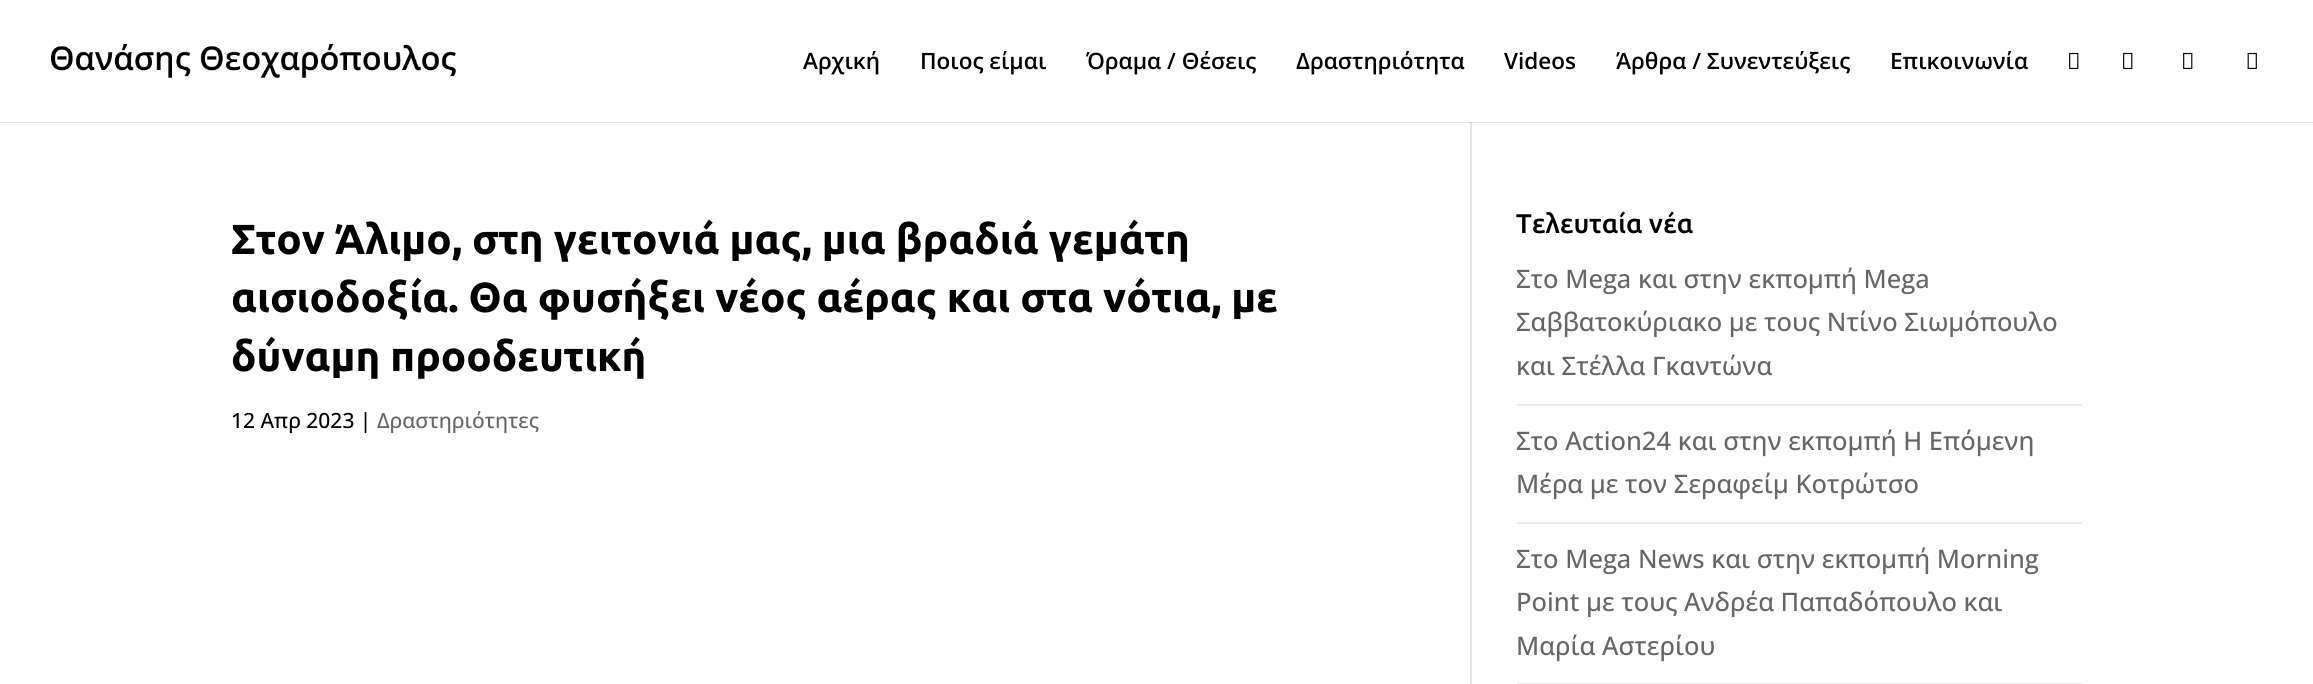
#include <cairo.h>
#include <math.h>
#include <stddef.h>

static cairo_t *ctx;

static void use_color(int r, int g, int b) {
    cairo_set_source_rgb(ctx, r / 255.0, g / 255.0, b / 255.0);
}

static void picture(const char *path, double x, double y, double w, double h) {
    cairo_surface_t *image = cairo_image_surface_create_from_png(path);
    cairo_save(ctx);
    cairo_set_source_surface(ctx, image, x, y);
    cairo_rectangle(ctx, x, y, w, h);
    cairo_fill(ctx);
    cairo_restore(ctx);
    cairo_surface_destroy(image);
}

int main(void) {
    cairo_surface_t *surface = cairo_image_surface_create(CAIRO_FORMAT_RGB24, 2313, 684);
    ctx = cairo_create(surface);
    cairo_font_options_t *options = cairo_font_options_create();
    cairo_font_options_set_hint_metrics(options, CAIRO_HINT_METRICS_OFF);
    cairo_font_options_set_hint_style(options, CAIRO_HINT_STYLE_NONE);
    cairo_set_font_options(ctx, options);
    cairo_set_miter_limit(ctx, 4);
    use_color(255, 255, 255);
    cairo_paint(ctx);
    use_color(230, 230, 230);
    cairo_rectangle(ctx, 0, 122, 2313, 1);
    cairo_fill(ctx);
    picture("img1.png", 51, 44, 405, 34);
    cairo_select_font_face(ctx, "Open Sans SemiBold", CAIRO_FONT_SLANT_NORMAL, CAIRO_FONT_WEIGHT_NORMAL);
    cairo_set_font_size(ctx, 22.5);
    use_color(0, 0, 0);
    cairo_move_to(ctx, 803, 69);
    cairo_show_text(ctx, "Αρχική");
    cairo_move_to(ctx, 920, 69);
    cairo_show_text(ctx, "Ποιος είμαι");
    cairo_move_to(ctx, 1086, 69);
    cairo_show_text(ctx, "Όραμα / Θέσεις");
    cairo_move_to(ctx, 1296, 69);
    cairo_show_text(ctx, "Δραστηριότητα");
    cairo_move_to(ctx, 1504, 69);
    cairo_show_text(ctx, "Videos");
    cairo_move_to(ctx, 1616, 69);
    cairo_show_text(ctx, "Άρθρα / Συνεντεύξεις");
    cairo_move_to(ctx, 1890, 69);
    cairo_show_text(ctx, "Επικοινωνία");
    picture("img2.png", 2069, 52, 10, 17);
    picture("img2.png", 2123, 52, 10, 17);
    picture("img2.png", 2183, 52, 10, 17);
    picture("img3.png", 2247, 52, 10, 17);
    use_color(226, 226, 226);
    cairo_rectangle(ctx, 1470, 122, 2, 562);
    cairo_fill(ctx);
    use_color(203, 203, 203);
    cairo_rectangle(ctx, 1470, 122, 2, 1);
    cairo_fill(ctx);
    cairo_select_font_face(ctx, "Ubuntu", CAIRO_FONT_SLANT_NORMAL, CAIRO_FONT_WEIGHT_BOLD);
    cairo_set_font_size(ctx, 42);
    use_color(0, 0, 0);
    cairo_move_to(ctx, 231, 254);
    cairo_show_text(ctx, "Στον Άλιμο, στη γειτονιά μας, μια βραδιά γεμάτη");
    cairo_move_to(ctx, 231, 312);
    cairo_show_text(ctx, "αισιοδοξία. Θα φυσήξει νέος αέρας και στα νότια, με");
    cairo_move_to(ctx, 231, 371);
    cairo_show_text(ctx, "δύναμη προοδευτική");
    cairo_select_font_face(ctx, "Open Sans Medium", CAIRO_FONT_SLANT_NORMAL, CAIRO_FONT_WEIGHT_NORMAL);
    cairo_set_font_size(ctx, 21);
    cairo_move_to(ctx, 231, 428);
    cairo_show_text(ctx, "12 Απρ 2023 |");
    use_color(102, 102, 102);
    cairo_move_to(ctx, 377, 428);
    cairo_show_text(ctx, "Δραστηριότητες");
    cairo_select_font_face(ctx, "Ubuntu Medium", CAIRO_FONT_SLANT_NORMAL, CAIRO_FONT_WEIGHT_NORMAL);
    cairo_set_font_size(ctx, 27);
    use_color(0, 0, 0);
    cairo_move_to(ctx, 1516, 233);
    cairo_show_text(ctx, "Τελευταία νέα");
    use_color(234, 234, 234);
    cairo_rectangle(ctx, 1517, 404, 565, 2);
    cairo_fill(ctx);
    cairo_select_font_face(ctx, "Open Sans Medium", CAIRO_FONT_SLANT_NORMAL, CAIRO_FONT_WEIGHT_NORMAL);
    cairo_set_font_size(ctx, 25.5);
    use_color(102, 102, 102);
    cairo_move_to(ctx, 1516, 288);
    cairo_show_text(ctx, "Στο Mega και στην εκπομπή Mega");
    cairo_move_to(ctx, 1516, 331);
    cairo_show_text(ctx, "Σαββατοκύριακο με τους Ντίνο Σιωμόπουλο");
    cairo_move_to(ctx, 1516, 375);
    cairo_show_text(ctx, "και Στέλλα Γκαντώνα");
    use_color(234, 234, 234);
    cairo_rectangle(ctx, 1517, 522, 565, 2);
    cairo_fill(ctx);
    use_color(102, 102, 102);
    cairo_move_to(ctx, 1516, 450);
    cairo_show_text(ctx, "Στο Action24 και στην εκπομπή Η Επόμενη");
    cairo_move_to(ctx, 1516, 493);
    cairo_show_text(ctx, "Μέρα με τον Σεραφείμ Κοτρώτσο");
    use_color(234, 234, 234);
    cairo_rectangle(ctx, 1517, 683, 565, 1);
    cairo_fill(ctx);
    use_color(102, 102, 102);
    cairo_move_to(ctx, 1516, 568);
    cairo_show_text(ctx, "Στο Mega News και στην εκπομπή Morning");
    cairo_move_to(ctx, 1516, 611);
    cairo_show_text(ctx, "Point με τους Ανδρέα Παπαδόπουλο και");
    cairo_move_to(ctx, 1516, 655);
    cairo_show_text(ctx, "Μαρία Αστερίου");
    cairo_surface_write_to_png(surface, "result.png");
    cairo_font_options_destroy(options);
    cairo_destroy(ctx);
    cairo_surface_destroy(surface);
    return 0;
}
